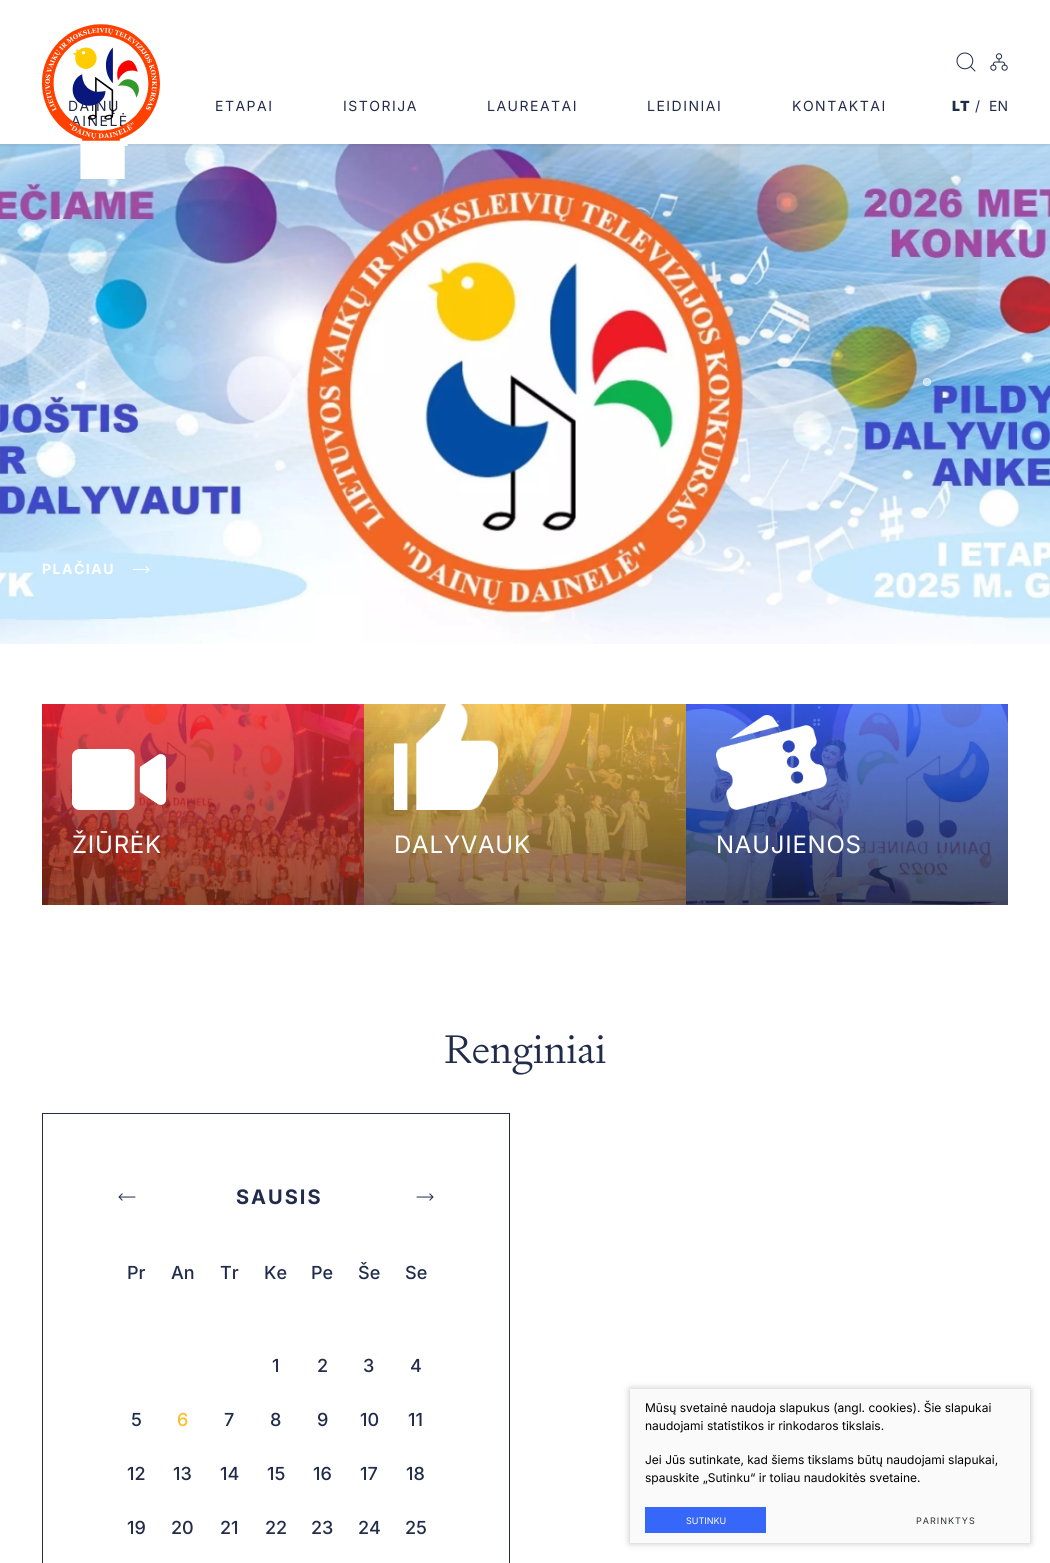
#include <cairo.h>
#include <math.h>
#include <stddef.h>

static cairo_t *ctx;

static void use_color(int r, int g, int b) {
    cairo_set_source_rgb(ctx, r / 255.0, g / 255.0, b / 255.0);
}

static void spaced_text(double x, double y, const char *s, double letter, double word) {
    cairo_move_to(ctx, x, y);
    while (*s) {
        char ch[5] = {0};
        int n = 0;
        do ch[n++] = *s++; while ((*s & 0xC0) == 0x80);
        cairo_show_text(ctx, ch);
        cairo_rel_move_to(ctx, letter + word * (*ch == ' '), 0);
    }
}

static void round_rect(double x, double y, double w, double h, double r) {
    cairo_new_sub_path(ctx);
    cairo_arc(ctx, x + w - r, y + h - r, r, 0, M_PI / 2);
    cairo_arc(ctx, x + r, y + h - r, r, M_PI / 2, M_PI);
    cairo_arc(ctx, x + r, y + r, r, M_PI, 1.5 * M_PI);
    cairo_arc(ctx, x + w - r, y + r, r, 1.5 * M_PI, 2 * M_PI);
    cairo_close_path(ctx);
}

static void shadow(double x, double y, double w, double h, double r, double blur, double alpha) {
    cairo_push_group_with_content(ctx, CAIRO_CONTENT_ALPHA);
    cairo_set_operator(ctx, CAIRO_OPERATOR_SOURCE);
    for (int i = 15; i >= -15 && fmin(w, h) + blur * i / 3 > 0; i -= 2) {
        double e = blur * i / 6;
        cairo_set_source_rgba(ctx, 0, 0, 0, alpha * erfc((i - 1) / 8.5) / 2);
        round_rect(x - e, y - e, w + 2 * e, h + 2 * e, fmax(0, fmin(r + e + blur * .6, fmin(w, h) / 2 + e)));
        cairo_fill(ctx);
    }
    cairo_pattern_t *soft = cairo_pop_group(ctx);
    cairo_mask(ctx, soft);
    cairo_pattern_destroy(soft);
}

static void picture(const char *path, double x, double y, double w, double h) {
    cairo_surface_t *image = cairo_image_surface_create_from_png(path);
    cairo_save(ctx);
    cairo_set_source_surface(ctx, image, x, y);
    cairo_rectangle(ctx, x, y, w, h);
    cairo_fill(ctx);
    cairo_restore(ctx);
    cairo_surface_destroy(image);
}

int main(void) {
    cairo_surface_t *surface = cairo_image_surface_create(CAIRO_FORMAT_RGB24, 1050, 1563);
    ctx = cairo_create(surface);
    cairo_font_options_t *options = cairo_font_options_create();
    cairo_font_options_set_hint_metrics(options, CAIRO_HINT_METRICS_OFF);
    cairo_font_options_set_hint_style(options, CAIRO_HINT_STYLE_NONE);
    cairo_set_font_options(ctx, options);
    cairo_set_miter_limit(ctx, 4);
    use_color(255, 255, 255);
    cairo_paint(ctx);
    picture("img4.png", 0, 144, 1050, 500);
    cairo_save(ctx);
    cairo_rectangle(ctx, 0, 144, 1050, 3);
    cairo_clip(ctx);
    use_color(0, 0, 0);
    shadow(0, 0, 1050, 144, 0, 2.5, 0.15);
    cairo_restore(ctx);
    cairo_select_font_face(ctx, "Inter", CAIRO_FONT_SLANT_NORMAL, CAIRO_FONT_WEIGHT_NORMAL);
    cairo_set_font_size(ctx, 14);
    use_color(33, 44, 75);
    spaced_text(68, 111, "DAINŲ", 1.5, 0);
    spaced_text(71, 126, "AINELĖ", 1.5, 0);
    picture("img1.png", 42, 24, 118, 155);
    picture("img2.png", 956, 52, 20, 20);
    picture("img3.png", 990, 53, 18, 18);
    spaced_text(215, 111, "ETAPAI", 1.5, 0);
    spaced_text(343, 111, "ISTORIJA", 1.5, 0);
    spaced_text(487, 111, "LAUREATAI", 1.5, 0);
    spaced_text(647, 111, "LEIDINIAI", 1.5, 0);
    spaced_text(792, 111, "KONTAKTAI", 1.5, 0);
    cairo_select_font_face(ctx, "Inter Black", CAIRO_FONT_SLANT_NORMAL, CAIRO_FONT_WEIGHT_NORMAL);
    cairo_move_to(ctx, 952, 111);
    cairo_show_text(ctx, "LT");
    cairo_select_font_face(ctx, "Inter", CAIRO_FONT_SLANT_NORMAL, CAIRO_FONT_WEIGHT_NORMAL);
    cairo_move_to(ctx, 975, 111);
    cairo_show_text(ctx, "/");
    cairo_move_to(ctx, 989, 111);
    cairo_show_text(ctx, "EN");
    cairo_set_source_rgba(ctx, 1, 1, 1, 0.5);
    cairo_new_path(ctx);
    cairo_arc(ctx, 927, 382, 4, 0, 2 * M_PI);
    cairo_fill(ctx);
    cairo_arc(ctx, 927, 382, 3.5, 0, 2 * M_PI);
    cairo_set_line_width(ctx, 1);
    cairo_stroke(ctx);
    cairo_arc(ctx, 927, 406, 3.5, 0, 2 * M_PI);
    cairo_set_source_rgba(ctx, 1, 1, 1, 0.1);
    cairo_stroke(ctx);
    cairo_select_font_face(ctx, "Inter", CAIRO_FONT_SLANT_NORMAL, CAIRO_FONT_WEIGHT_BOLD);
    use_color(254, 255, 255);
    spaced_text(42, 574, "PLAČIAU", 1.5, 0);
    picture("img5.png", 133, 566, 17, 7);
    picture("img6.png", 42, 704, 322, 201);
    picture("img7.png", 72, 749, 94, 61);
    cairo_select_font_face(ctx, "Inter", CAIRO_FONT_SLANT_NORMAL, CAIRO_FONT_WEIGHT_NORMAL);
    cairo_set_font_size(ctx, 24);
    spaced_text(72, 853, "ŽIŪRĖK", 0.75, 0);
    picture("img8.png", 364, 704, 322, 201);
    picture("img9.png", 394, 704, 104, 106);
    spaced_text(394, 853, "DALYVAUK", 0.75, 0);
    picture("img10.png", 686, 704, 322, 201);
    picture("img11.png", 716, 715, 111, 95);
    spaced_text(716, 853, "NAUJIENOS", 0.75, 0);
    cairo_select_font_face(ctx, "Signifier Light", CAIRO_FONT_SLANT_NORMAL, CAIRO_FONT_WEIGHT_NORMAL);
    cairo_set_font_size(ctx, 40);
    use_color(33, 44, 75);
    cairo_move_to(ctx, 444, 1063);
    cairo_show_text(ctx, "Renginiai");
    cairo_rectangle(ctx, 42.5, 1113.5, 467, 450);
    cairo_stroke(ctx);
    picture("img12.png", 118, 1193, 18, 8);
    cairo_select_font_face(ctx, "Inter", CAIRO_FONT_SLANT_NORMAL, CAIRO_FONT_WEIGHT_BOLD);
    cairo_set_font_size(ctx, 20);
    spaced_text(236, 1204, "SAUSIS", 2, 0);
    picture("img13.png", 416, 1193, 18, 8);
    cairo_select_font_face(ctx, "Inter Medium", CAIRO_FONT_SLANT_NORMAL, CAIRO_FONT_WEIGHT_NORMAL);
    cairo_set_font_size(ctx, 18);
    cairo_move_to(ctx, 127, 1279);
    cairo_show_text(ctx, "Pr");
    cairo_move_to(ctx, 171, 1279);
    cairo_show_text(ctx, "An");
    cairo_move_to(ctx, 220, 1279);
    cairo_show_text(ctx, "Tr");
    cairo_move_to(ctx, 264, 1279);
    cairo_show_text(ctx, "Ke");
    cairo_move_to(ctx, 311, 1279);
    cairo_show_text(ctx, "Pe");
    cairo_move_to(ctx, 358, 1279);
    cairo_show_text(ctx, "Še");
    cairo_move_to(ctx, 405, 1279);
    cairo_show_text(ctx, "Se");
    cairo_move_to(ctx, 272, 1372);
    cairo_show_text(ctx, "1");
    cairo_move_to(ctx, 317, 1372);
    cairo_show_text(ctx, "2");
    cairo_move_to(ctx, 363, 1372);
    cairo_show_text(ctx, "3");
    cairo_move_to(ctx, 410, 1372);
    cairo_show_text(ctx, "4");
    cairo_move_to(ctx, 131, 1426);
    cairo_show_text(ctx, "5");
    use_color(253, 189, 46);
    cairo_move_to(ctx, 177, 1426);
    cairo_show_text(ctx, "6");
    use_color(33, 44, 75);
    cairo_move_to(ctx, 224, 1426);
    cairo_show_text(ctx, "7");
    cairo_move_to(ctx, 270, 1426);
    cairo_show_text(ctx, "8");
    cairo_move_to(ctx, 317, 1426);
    cairo_show_text(ctx, "9");
    cairo_move_to(ctx, 360, 1426);
    cairo_show_text(ctx, "10");
    cairo_move_to(ctx, 408, 1426);
    cairo_show_text(ctx, "11");
    cairo_move_to(ctx, 127, 1480);
    cairo_show_text(ctx, "12");
    cairo_move_to(ctx, 173, 1480);
    cairo_show_text(ctx, "13");
    cairo_move_to(ctx, 220, 1480);
    cairo_show_text(ctx, "14");
    cairo_move_to(ctx, 267, 1480);
    cairo_show_text(ctx, "15");
    cairo_move_to(ctx, 313, 1480);
    cairo_show_text(ctx, "16");
    cairo_move_to(ctx, 360, 1480);
    cairo_show_text(ctx, "17");
    cairo_move_to(ctx, 406, 1480);
    cairo_show_text(ctx, "18");
    cairo_move_to(ctx, 127, 1534);
    cairo_show_text(ctx, "19");
    cairo_move_to(ctx, 171, 1534);
    cairo_show_text(ctx, "20");
    cairo_move_to(ctx, 220, 1534);
    cairo_show_text(ctx, "21");
    cairo_move_to(ctx, 265, 1534);
    cairo_show_text(ctx, "22");
    cairo_move_to(ctx, 311, 1534);
    cairo_show_text(ctx, "23");
    cairo_move_to(ctx, 358, 1534);
    cairo_show_text(ctx, "24");
    cairo_move_to(ctx, 405, 1534);
    cairo_show_text(ctx, "25");
    use_color(0, 0, 0);
    shadow(630, 1389, 400, 154, 0, 3.5, 0.25);
    use_color(250, 250, 250);
    cairo_rectangle(ctx, 630, 1389, 400, 154);
    cairo_fill(ctx);
    cairo_select_font_face(ctx, "Inter", CAIRO_FONT_SLANT_NORMAL, CAIRO_FONT_WEIGHT_NORMAL);
    cairo_set_font_size(ctx, 12);
    use_color(0, 0, 0);
    cairo_move_to(ctx, 645, 1412);
    cairo_show_text(ctx, "Mūsų svetainė naudoja slapukus (angl. cookies). Šie slapukai");
    cairo_move_to(ctx, 645, 1430);
    cairo_show_text(ctx, "naudojami statistikos ir rinkodaros tikslais.");
    cairo_move_to(ctx, 645, 1464);
    cairo_show_text(ctx, "Jei Jūs sutinkate, kad šiems tikslams būtų naudojami slapukai,");
    cairo_move_to(ctx, 645, 1482);
    cairo_show_text(ctx, "spauskite „Sutinku“ ir toliau naudokitės svetaine.");
    use_color(55, 103, 249);
    cairo_rectangle(ctx, 645, 1507, 121, 26);
    cairo_fill(ctx);
    cairo_set_font_size(ctx, 9);
    use_color(254, 255, 255);
    cairo_move_to(ctx, 686, 1524);
    cairo_show_text(ctx, "SUTINKU");
    use_color(38, 50, 56);
    spaced_text(916, 1524, "PARINKTYS", 1, 0);
    cairo_surface_write_to_png(surface, "result.png");
    cairo_font_options_destroy(options);
    cairo_destroy(ctx);
    cairo_surface_destroy(surface);
    return 0;
}
